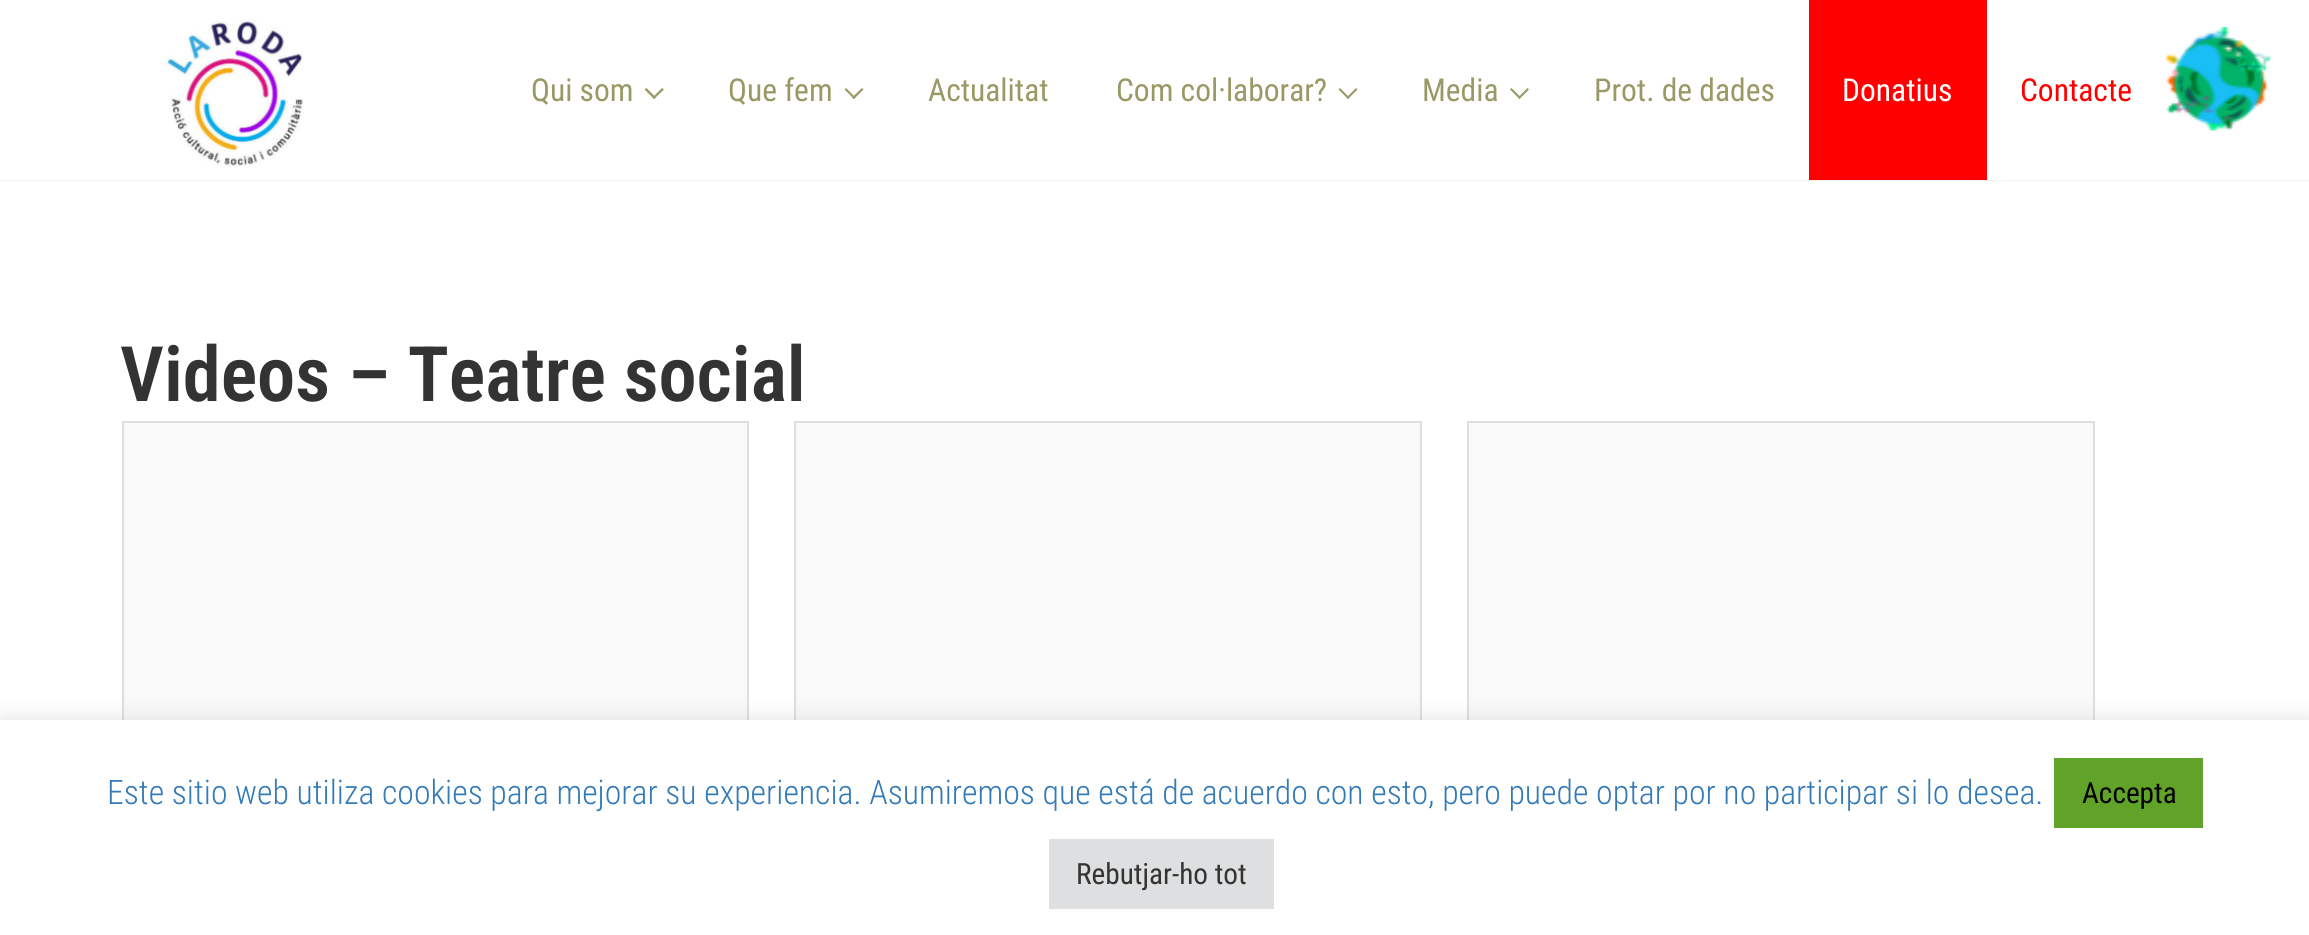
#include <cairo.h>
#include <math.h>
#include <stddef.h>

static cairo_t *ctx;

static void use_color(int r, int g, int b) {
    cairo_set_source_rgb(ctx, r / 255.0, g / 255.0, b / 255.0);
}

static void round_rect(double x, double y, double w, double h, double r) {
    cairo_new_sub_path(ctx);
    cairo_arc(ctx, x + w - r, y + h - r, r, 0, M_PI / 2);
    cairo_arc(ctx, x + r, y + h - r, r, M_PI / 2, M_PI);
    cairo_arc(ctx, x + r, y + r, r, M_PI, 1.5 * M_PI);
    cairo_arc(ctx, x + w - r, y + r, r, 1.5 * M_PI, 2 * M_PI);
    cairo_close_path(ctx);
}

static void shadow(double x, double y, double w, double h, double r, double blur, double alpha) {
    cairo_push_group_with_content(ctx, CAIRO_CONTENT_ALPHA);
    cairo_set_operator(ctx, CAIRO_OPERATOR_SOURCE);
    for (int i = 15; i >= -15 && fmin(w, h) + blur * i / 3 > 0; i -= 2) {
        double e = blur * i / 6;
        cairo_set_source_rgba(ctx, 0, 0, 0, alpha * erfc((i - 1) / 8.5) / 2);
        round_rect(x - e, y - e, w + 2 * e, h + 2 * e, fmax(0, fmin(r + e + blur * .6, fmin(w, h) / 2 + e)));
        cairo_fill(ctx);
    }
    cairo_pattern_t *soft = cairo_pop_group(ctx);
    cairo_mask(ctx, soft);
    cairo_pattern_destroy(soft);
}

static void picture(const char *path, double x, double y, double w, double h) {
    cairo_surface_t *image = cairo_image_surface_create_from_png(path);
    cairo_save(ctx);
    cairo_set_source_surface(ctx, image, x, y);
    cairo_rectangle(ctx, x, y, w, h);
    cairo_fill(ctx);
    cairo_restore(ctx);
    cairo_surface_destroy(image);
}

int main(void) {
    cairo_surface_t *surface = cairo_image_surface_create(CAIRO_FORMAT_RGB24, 2309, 935);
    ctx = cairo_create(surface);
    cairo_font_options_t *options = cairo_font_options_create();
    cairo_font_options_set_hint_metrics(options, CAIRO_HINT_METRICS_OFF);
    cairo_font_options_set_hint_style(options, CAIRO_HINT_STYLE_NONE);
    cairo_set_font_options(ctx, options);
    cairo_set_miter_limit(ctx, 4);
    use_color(255, 255, 255);
    cairo_paint(ctx);
    cairo_save(ctx);
    cairo_rectangle(ctx, 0, 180, 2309, 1);
    cairo_clip(ctx);
    use_color(0, 0, 0);
    shadow(0, 0, 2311, 180, 0, 1, 0.15);
    cairo_restore(ctx);
    picture("img1.png", 165, 19, 139, 148);
    cairo_select_font_face(ctx, "Roboto Condensed", CAIRO_FONT_SLANT_NORMAL, CAIRO_FONT_WEIGHT_NORMAL);
    cairo_set_font_size(ctx, 31.5);
    use_color(153, 153, 102);
    cairo_move_to(ctx, 531, 101);
    cairo_show_text(ctx, "Qui som");
    cairo_new_path(ctx);
    cairo_move_to(ctx, 662, 88);
    cairo_line_to(ctx, 664, 89.5);
    cairo_line_to(ctx, 654, 99);
    cairo_line_to(ctx, 652.5, 97.5);
    cairo_close_path(ctx);
    cairo_fill(ctx);
    cairo_new_path(ctx);
    cairo_move_to(ctx, 646.5, 88);
    cairo_line_to(ctx, 656, 97.5);
    cairo_line_to(ctx, 654, 99);
    cairo_line_to(ctx, 644.5, 89.5);
    cairo_close_path(ctx);
    cairo_fill(ctx);
    cairo_move_to(ctx, 728, 101);
    cairo_show_text(ctx, "Que fem");
    cairo_new_path(ctx);
    cairo_move_to(ctx, 862, 88);
    cairo_line_to(ctx, 863.5, 89.5);
    cairo_line_to(ctx, 854, 99);
    cairo_line_to(ctx, 852, 97.5);
    cairo_close_path(ctx);
    cairo_fill(ctx);
    cairo_new_path(ctx);
    cairo_move_to(ctx, 846, 88);
    cairo_line_to(ctx, 855.5, 97.5);
    cairo_line_to(ctx, 854, 99);
    cairo_line_to(ctx, 844.5, 89.5);
    cairo_close_path(ctx);
    cairo_fill(ctx);
    cairo_move_to(ctx, 928, 101);
    cairo_show_text(ctx, "Actualitat");
    cairo_move_to(ctx, 1116, 101);
    cairo_show_text(ctx, "Com col·laborar?");
    cairo_new_path(ctx);
    cairo_move_to(ctx, 1356, 88);
    cairo_line_to(ctx, 1357.5, 89.5);
    cairo_line_to(ctx, 1348, 99);
    cairo_line_to(ctx, 1346.5, 97.5);
    cairo_close_path(ctx);
    cairo_fill(ctx);
    cairo_new_path(ctx);
    cairo_move_to(ctx, 1340, 88);
    cairo_line_to(ctx, 1349.5, 97.5);
    cairo_line_to(ctx, 1348, 99);
    cairo_line_to(ctx, 1338.5, 89.5);
    cairo_close_path(ctx);
    cairo_fill(ctx);
    cairo_move_to(ctx, 1422, 101);
    cairo_show_text(ctx, "Media");
    cairo_new_path(ctx);
    cairo_move_to(ctx, 1527.5, 88);
    cairo_line_to(ctx, 1529, 89.5);
    cairo_line_to(ctx, 1519.5, 99);
    cairo_line_to(ctx, 1518, 97.5);
    cairo_close_path(ctx);
    cairo_fill(ctx);
    cairo_new_path(ctx);
    cairo_move_to(ctx, 1511.5, 88);
    cairo_line_to(ctx, 1521, 97.5);
    cairo_line_to(ctx, 1519.5, 99);
    cairo_line_to(ctx, 1510, 89.5);
    cairo_close_path(ctx);
    cairo_fill(ctx);
    cairo_move_to(ctx, 1594, 101);
    cairo_show_text(ctx, "Prot. de dades");
    use_color(255, 0, 0);
    cairo_rectangle(ctx, 1809, 0, 178, 180);
    cairo_fill(ctx);
    use_color(255, 255, 255);
    cairo_move_to(ctx, 1842, 101);
    cairo_show_text(ctx, "Donatius");
    use_color(255, 0, 0);
    cairo_move_to(ctx, 2020, 101);
    cairo_show_text(ctx, "Contacte");
    picture("img2.png", 2166, 27, 105, 104);
    cairo_select_font_face(ctx, "Roboto Condensed SemiBold", CAIRO_FONT_SLANT_NORMAL, CAIRO_FONT_WEIGHT_NORMAL);
    cairo_set_font_size(ctx, 76.5);
    use_color(51, 51, 51);
    cairo_move_to(ctx, 120, 401);
    cairo_show_text(ctx, "Videos – Teatre social");
    use_color(249, 249, 249);
    cairo_rectangle(ctx, 124, 423, 623, 297);
    cairo_fill(ctx);
    cairo_rectangle(ctx, 123, 422, 625, 464);
    use_color(222, 222, 222);
    cairo_stroke(ctx);
    use_color(249, 249, 249);
    cairo_rectangle(ctx, 796, 423, 624, 297);
    cairo_fill(ctx);
    cairo_rectangle(ctx, 795, 422, 626, 464);
    use_color(222, 222, 222);
    cairo_stroke(ctx);
    use_color(249, 249, 249);
    cairo_rectangle(ctx, 1469, 423, 624, 297);
    cairo_fill(ctx);
    cairo_rectangle(ctx, 1468, 422, 626, 464);
    use_color(222, 222, 222);
    cairo_stroke(ctx);
    use_color(172, 171, 171);
    shadow(0, 718, 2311, 216, 0, 11, 0.3);
    use_color(255, 255, 255);
    cairo_rectangle(ctx, 0, 720, 2309, 215);
    cairo_fill(ctx);
    cairo_select_font_face(ctx, "Roboto Condensed Light", CAIRO_FONT_SLANT_NORMAL, CAIRO_FONT_WEIGHT_NORMAL);
    cairo_set_font_size(ctx, 33.75);
    use_color(51, 122, 183);
    cairo_move_to(ctx, 107, 804);
    cairo_show_text(ctx, "Este sitio web utiliza cookies para mejorar su experiencia. Asumiremos que está de acuerdo con esto, pero puede optar por no participar si lo desea.");
    use_color(97, 162, 41);
    cairo_rectangle(ctx, 2054, 758, 149, 70);
    cairo_fill(ctx);
    cairo_select_font_face(ctx, "Roboto Condensed", CAIRO_FONT_SLANT_NORMAL, CAIRO_FONT_WEIGHT_NORMAL);
    cairo_set_font_size(ctx, 29.25);
    use_color(2, 2, 2);
    cairo_move_to(ctx, 2082, 803);
    cairo_show_text(ctx, "Accepta");
    use_color(222, 223, 224);
    cairo_rectangle(ctx, 1049, 839, 225, 70);
    cairo_fill(ctx);
    use_color(51, 51, 51);
    cairo_move_to(ctx, 1076, 884);
    cairo_show_text(ctx, "Rebutjar-ho tot");
    cairo_surface_write_to_png(surface, "result.png");
    cairo_font_options_destroy(options);
    cairo_destroy(ctx);
    cairo_surface_destroy(surface);
    return 0;
}
